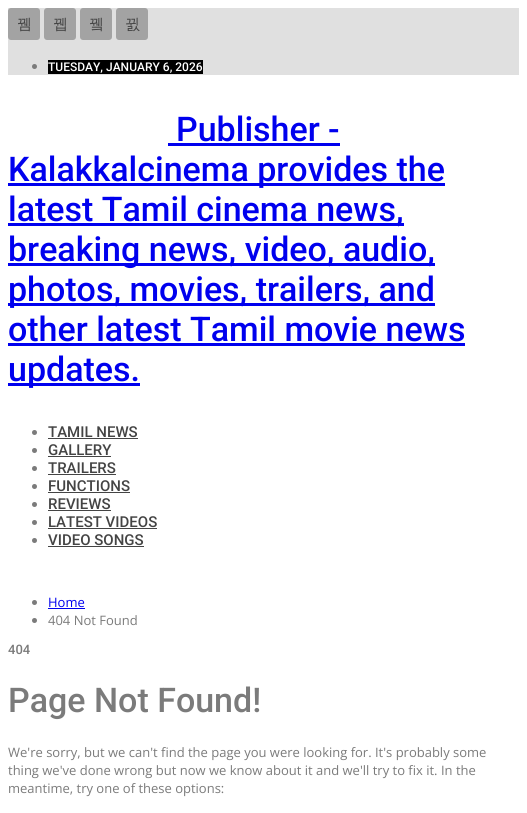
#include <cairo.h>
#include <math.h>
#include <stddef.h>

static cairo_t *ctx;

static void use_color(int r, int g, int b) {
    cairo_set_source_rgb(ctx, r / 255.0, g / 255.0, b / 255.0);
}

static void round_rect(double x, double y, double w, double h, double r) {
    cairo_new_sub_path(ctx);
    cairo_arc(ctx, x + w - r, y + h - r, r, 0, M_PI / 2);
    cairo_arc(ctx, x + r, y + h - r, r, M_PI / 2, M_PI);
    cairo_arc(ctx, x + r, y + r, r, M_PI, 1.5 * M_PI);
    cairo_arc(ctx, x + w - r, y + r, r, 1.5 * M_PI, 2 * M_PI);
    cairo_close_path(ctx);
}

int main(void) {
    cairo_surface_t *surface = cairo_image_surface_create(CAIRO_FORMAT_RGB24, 527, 813);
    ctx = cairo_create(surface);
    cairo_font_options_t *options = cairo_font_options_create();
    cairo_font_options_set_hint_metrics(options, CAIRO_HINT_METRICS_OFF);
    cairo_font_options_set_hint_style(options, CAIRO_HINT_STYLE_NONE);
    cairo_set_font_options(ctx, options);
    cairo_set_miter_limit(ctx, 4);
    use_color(255, 255, 255);
    cairo_paint(ctx);
    use_color(224, 224, 224);
    cairo_rectangle(ctx, 8, 8, 511, 67);
    cairo_fill(ctx);
    use_color(163, 163, 163);
    round_rect(8, 8, 32, 32, 3);
    cairo_fill(ctx);
    cairo_select_font_face(ctx, "WenQuanYi Zen Hei Medium", CAIRO_FONT_SLANT_NORMAL, CAIRO_FONT_WEIGHT_NORMAL);
    cairo_set_font_size(ctx, 15);
    use_color(68, 68, 68);
    cairo_move_to(ctx, 17, 29);
    cairo_show_text(ctx, "뀀");
    use_color(163, 163, 163);
    round_rect(44, 8, 32, 32, 3);
    cairo_fill(ctx);
    use_color(68, 68, 68);
    cairo_move_to(ctx, 53, 29);
    cairo_show_text(ctx, "뀁");
    use_color(163, 163, 163);
    round_rect(80, 8, 32, 32, 3);
    cairo_fill(ctx);
    use_color(68, 68, 68);
    cairo_move_to(ctx, 89, 29);
    cairo_show_text(ctx, "뀈");
    use_color(163, 163, 163);
    round_rect(116, 8, 32, 32, 3);
    cairo_fill(ctx);
    use_color(68, 68, 68);
    cairo_move_to(ctx, 125, 29);
    cairo_show_text(ctx, "뀘");
    use_color(123, 123, 123);
    cairo_new_path(ctx);
    cairo_arc(ctx, 34.5, 66.5, 2.5, 0, 2 * M_PI);
    cairo_fill(ctx);
    use_color(0, 0, 0);
    cairo_rectangle(ctx, 48, 60, 155, 14);
    cairo_fill(ctx);
    cairo_select_font_face(ctx, "Roboto Medium", CAIRO_FONT_SLANT_NORMAL, CAIRO_FONT_WEIGHT_NORMAL);
    cairo_set_font_size(ctx, 12);
    use_color(255, 255, 255);
    cairo_move_to(ctx, 48, 71);
    cairo_show_text(ctx, "TUESDAY, JANUARY 6, 2026");
    cairo_set_font_size(ctx, 34);
    use_color(0, 0, 238);
    cairo_move_to(ctx, 176, 141);
    cairo_show_text(ctx, "Publisher -");
    cairo_rectangle(ctx, 168, 143, 172, 3);
    cairo_fill(ctx);
    cairo_rectangle(ctx, 8, 183, 437, 3);
    cairo_fill(ctx);
    cairo_move_to(ctx, 8, 181);
    cairo_show_text(ctx, "Kalakkalcinema provides the");
    cairo_rectangle(ctx, 8, 223, 396, 3);
    cairo_fill(ctx);
    cairo_move_to(ctx, 8, 221);
    cairo_show_text(ctx, "latest Tamil cinema news,");
    cairo_rectangle(ctx, 8, 263, 427, 3);
    cairo_fill(ctx);
    cairo_move_to(ctx, 8, 261);
    cairo_show_text(ctx, "breaking news, video, audio,");
    cairo_rectangle(ctx, 8, 303, 427, 3);
    cairo_fill(ctx);
    cairo_move_to(ctx, 8, 301);
    cairo_show_text(ctx, "photos, movies, trailers, and");
    cairo_move_to(ctx, 8, 341);
    cairo_show_text(ctx, "other latest Tamil movie news");
    cairo_rectangle(ctx, 8, 343, 457, 3);
    cairo_fill(ctx);
    cairo_rectangle(ctx, 8, 383, 132, 3);
    cairo_fill(ctx);
    cairo_move_to(ctx, 8, 381);
    cairo_show_text(ctx, "updates.");
    use_color(123, 123, 123);
    cairo_new_path(ctx);
    cairo_arc(ctx, 34.5, 432.5, 2.5, 0, 2 * M_PI);
    cairo_fill(ctx);
    cairo_set_font_size(ctx, 15);
    use_color(68, 68, 68);
    cairo_move_to(ctx, 48, 437);
    cairo_show_text(ctx, "TAMIL NEWS");
    cairo_rectangle(ctx, 48, 438, 90, 1);
    cairo_fill(ctx);
    use_color(123, 123, 123);
    cairo_arc(ctx, 34.5, 450.5, 2.5, 0, 2 * M_PI);
    cairo_fill(ctx);
    use_color(68, 68, 68);
    cairo_move_to(ctx, 48, 455);
    cairo_show_text(ctx, "GALLERY");
    cairo_rectangle(ctx, 48, 456, 63, 1);
    cairo_fill(ctx);
    use_color(123, 123, 123);
    cairo_arc(ctx, 34.5, 468.5, 2.5, 0, 2 * M_PI);
    cairo_fill(ctx);
    use_color(68, 68, 68);
    cairo_move_to(ctx, 48, 473);
    cairo_show_text(ctx, "TRAILERS");
    cairo_rectangle(ctx, 48, 474, 68, 1);
    cairo_fill(ctx);
    use_color(123, 123, 123);
    cairo_arc(ctx, 34.5, 486.5, 2.5, 0, 2 * M_PI);
    cairo_fill(ctx);
    use_color(68, 68, 68);
    cairo_move_to(ctx, 48, 491);
    cairo_show_text(ctx, "FUNCTIONS");
    cairo_rectangle(ctx, 48, 492, 82, 1);
    cairo_fill(ctx);
    use_color(123, 123, 123);
    cairo_arc(ctx, 34.5, 504.5, 2.5, 0, 2 * M_PI);
    cairo_fill(ctx);
    use_color(68, 68, 68);
    cairo_move_to(ctx, 48, 509);
    cairo_show_text(ctx, "REVIEWS");
    cairo_rectangle(ctx, 48, 510, 63, 1);
    cairo_fill(ctx);
    use_color(123, 123, 123);
    cairo_arc(ctx, 34.5, 522.5, 2.5, 0, 2 * M_PI);
    cairo_fill(ctx);
    use_color(68, 68, 68);
    cairo_move_to(ctx, 48, 527);
    cairo_show_text(ctx, "LATEST VIDEOS");
    cairo_rectangle(ctx, 48, 528, 109, 1);
    cairo_fill(ctx);
    use_color(123, 123, 123);
    cairo_arc(ctx, 34.5, 540.5, 2.5, 0, 2 * M_PI);
    cairo_fill(ctx);
    use_color(68, 68, 68);
    cairo_move_to(ctx, 48, 545);
    cairo_show_text(ctx, "VIDEO SONGS");
    cairo_rectangle(ctx, 48, 546, 96, 1);
    cairo_fill(ctx);
    use_color(123, 123, 123);
    cairo_arc(ctx, 34.5, 602.5, 2.5, 0, 2 * M_PI);
    cairo_fill(ctx);
    cairo_select_font_face(ctx, "Open Sans", CAIRO_FONT_SLANT_NORMAL, CAIRO_FONT_WEIGHT_NORMAL);
    cairo_set_font_size(ctx, 13);
    use_color(0, 0, 238);
    cairo_move_to(ctx, 48, 607);
    cairo_show_text(ctx, "Home");
    cairo_rectangle(ctx, 48, 608, 37, 1);
    cairo_fill(ctx);
    use_color(123, 123, 123);
    cairo_arc(ctx, 34.5, 620.5, 2.5, 0, 2 * M_PI);
    cairo_fill(ctx);
    cairo_move_to(ctx, 48, 625);
    cairo_show_text(ctx, "404 Not Found");
    cairo_select_font_face(ctx, "Roboto Medium", CAIRO_FONT_SLANT_NORMAL, CAIRO_FONT_WEIGHT_NORMAL);
    cairo_move_to(ctx, 8, 654);
    cairo_show_text(ctx, "404");
    cairo_set_font_size(ctx, 34);
    cairo_move_to(ctx, 8, 712);
    cairo_show_text(ctx, "Page Not Found!");
    cairo_select_font_face(ctx, "Open Sans", CAIRO_FONT_SLANT_NORMAL, CAIRO_FONT_WEIGHT_NORMAL);
    cairo_set_font_size(ctx, 13);
    cairo_move_to(ctx, 8, 757);
    cairo_show_text(ctx, "We're sorry, but we can't find the page you were looking for. It's probably some");
    cairo_move_to(ctx, 8, 775);
    cairo_show_text(ctx, "thing we've done wrong but now we know about it and we'll try to fix it. In the");
    cairo_move_to(ctx, 8, 793);
    cairo_show_text(ctx, "meantime, try one of these options:");
    cairo_surface_write_to_png(surface, "result.png");
    cairo_font_options_destroy(options);
    cairo_destroy(ctx);
    cairo_surface_destroy(surface);
    return 0;
}
